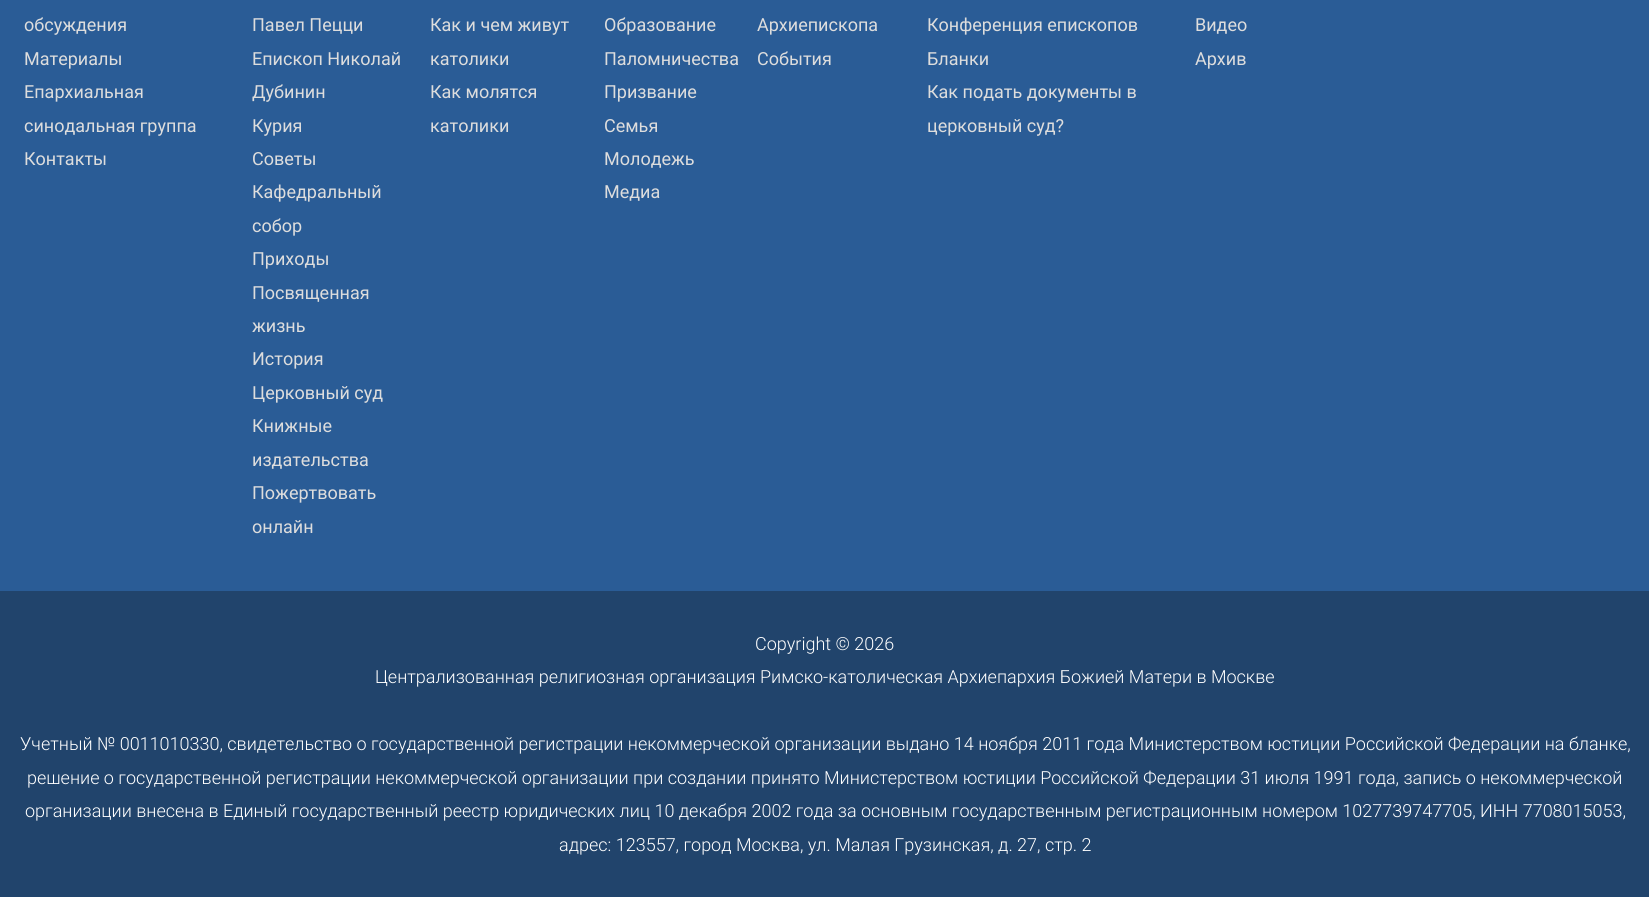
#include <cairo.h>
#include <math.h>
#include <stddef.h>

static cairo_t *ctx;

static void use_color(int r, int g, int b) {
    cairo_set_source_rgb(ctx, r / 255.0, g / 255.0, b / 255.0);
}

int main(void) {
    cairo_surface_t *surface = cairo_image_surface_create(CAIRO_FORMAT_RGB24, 1649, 897);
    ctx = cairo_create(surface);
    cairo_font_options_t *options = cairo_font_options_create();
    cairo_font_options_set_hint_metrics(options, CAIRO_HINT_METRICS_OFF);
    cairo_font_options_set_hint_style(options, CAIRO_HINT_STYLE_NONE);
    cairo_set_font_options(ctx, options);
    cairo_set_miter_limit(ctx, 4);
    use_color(42, 92, 150);
    cairo_paint(ctx);
    cairo_select_font_face(ctx, "Roboto", CAIRO_FONT_SLANT_NORMAL, CAIRO_FONT_WEIGHT_NORMAL);
    cairo_set_font_size(ctx, 18);
    use_color(221, 221, 221);
    cairo_move_to(ctx, 24, 31);
    cairo_show_text(ctx, "обсуждения");
    cairo_move_to(ctx, 24, 65);
    cairo_show_text(ctx, "Материалы");
    cairo_move_to(ctx, 24, 98);
    cairo_show_text(ctx, "Епархиальная");
    cairo_move_to(ctx, 24, 132);
    cairo_show_text(ctx, "синодальная группа");
    cairo_move_to(ctx, 24, 165);
    cairo_show_text(ctx, "Контакты");
    cairo_move_to(ctx, 252, 31);
    cairo_show_text(ctx, "Павел Пецци");
    cairo_move_to(ctx, 252, 65);
    cairo_show_text(ctx, "Епископ Николай");
    cairo_move_to(ctx, 252, 98);
    cairo_show_text(ctx, "Дубинин");
    cairo_move_to(ctx, 252, 132);
    cairo_show_text(ctx, "Курия");
    cairo_move_to(ctx, 252, 165);
    cairo_show_text(ctx, "Советы");
    cairo_move_to(ctx, 252, 198);
    cairo_show_text(ctx, "Кафедральный");
    cairo_move_to(ctx, 252, 232);
    cairo_show_text(ctx, "собор");
    cairo_move_to(ctx, 252, 265);
    cairo_show_text(ctx, "Приходы");
    cairo_move_to(ctx, 252, 299);
    cairo_show_text(ctx, "Посвященная");
    cairo_move_to(ctx, 252, 332);
    cairo_show_text(ctx, "жизнь");
    cairo_move_to(ctx, 252, 365);
    cairo_show_text(ctx, "История");
    cairo_move_to(ctx, 252, 399);
    cairo_show_text(ctx, "Церковный суд");
    cairo_move_to(ctx, 252, 432);
    cairo_show_text(ctx, "Книжные");
    cairo_move_to(ctx, 252, 466);
    cairo_show_text(ctx, "издательства");
    cairo_move_to(ctx, 252, 499);
    cairo_show_text(ctx, "Пожертвовать");
    cairo_move_to(ctx, 252, 533);
    cairo_show_text(ctx, "онлайн");
    cairo_move_to(ctx, 430, 31);
    cairo_show_text(ctx, "Как и чем живут");
    cairo_move_to(ctx, 430, 65);
    cairo_show_text(ctx, "католики");
    cairo_move_to(ctx, 430, 98);
    cairo_show_text(ctx, "Как молятся");
    cairo_move_to(ctx, 430, 132);
    cairo_show_text(ctx, "католики");
    cairo_move_to(ctx, 604, 31);
    cairo_show_text(ctx, "Образование");
    cairo_move_to(ctx, 604, 65);
    cairo_show_text(ctx, "Паломничества");
    cairo_move_to(ctx, 604, 98);
    cairo_show_text(ctx, "Призвание");
    cairo_move_to(ctx, 604, 132);
    cairo_show_text(ctx, "Семья");
    cairo_move_to(ctx, 604, 165);
    cairo_show_text(ctx, "Молодежь");
    cairo_move_to(ctx, 604, 198);
    cairo_show_text(ctx, "Медиа");
    cairo_move_to(ctx, 757, 31);
    cairo_show_text(ctx, "Архиепископа");
    cairo_move_to(ctx, 757, 65);
    cairo_show_text(ctx, "События");
    cairo_move_to(ctx, 927, 31);
    cairo_show_text(ctx, "Конференция епископов");
    cairo_move_to(ctx, 927, 65);
    cairo_show_text(ctx, "Бланки");
    cairo_move_to(ctx, 927, 98);
    cairo_show_text(ctx, "Как подать документы в");
    cairo_move_to(ctx, 927, 132);
    cairo_show_text(ctx, "церковный суд?");
    cairo_move_to(ctx, 1195, 31);
    cairo_show_text(ctx, "Видео");
    cairo_move_to(ctx, 1195, 65);
    cairo_show_text(ctx, "Архив");
    use_color(33, 68, 108);
    cairo_rectangle(ctx, 0, 591, 1649, 306);
    cairo_fill(ctx);
    cairo_select_font_face(ctx, "Roboto Light", CAIRO_FONT_SLANT_NORMAL, CAIRO_FONT_WEIGHT_NORMAL);
    use_color(255, 255, 255);
    cairo_move_to(ctx, 755, 650);
    cairo_show_text(ctx, "Copyright © 2026");
    cairo_move_to(ctx, 375, 683);
    cairo_show_text(ctx, "Централизованная религиозная организация Римско-католическая Архиепархия Божией Матери в Москве");
    cairo_move_to(ctx, 20, 750);
    cairo_show_text(ctx, "Учетный № 0011010330, свидетельство о государственной регистрации некоммерческой организации выдано 14 ноября 2011 года Министерством юстиции Российской Федерации на бланке,");
    cairo_move_to(ctx, 27, 784);
    cairo_show_text(ctx, "решение о государственной регистрации некоммерческой организации при создании принято Министерством юстиции Российской Федерации 31 июля 1991 года, запись о некоммерческой");
    cairo_move_to(ctx, 25, 817);
    cairo_show_text(ctx, "организации внесена в Единый государственный реестр юридических лиц 10 декабря 2002 года за основным государственным регистрационным номером 1027739747705, ИНН 7708015053,");
    cairo_move_to(ctx, 559, 851);
    cairo_show_text(ctx, "адрес: 123557, город Москва, ул. Малая Грузинская, д. 27, стр. 2");
    cairo_surface_write_to_png(surface, "result.png");
    cairo_font_options_destroy(options);
    cairo_destroy(ctx);
    cairo_surface_destroy(surface);
    return 0;
}
